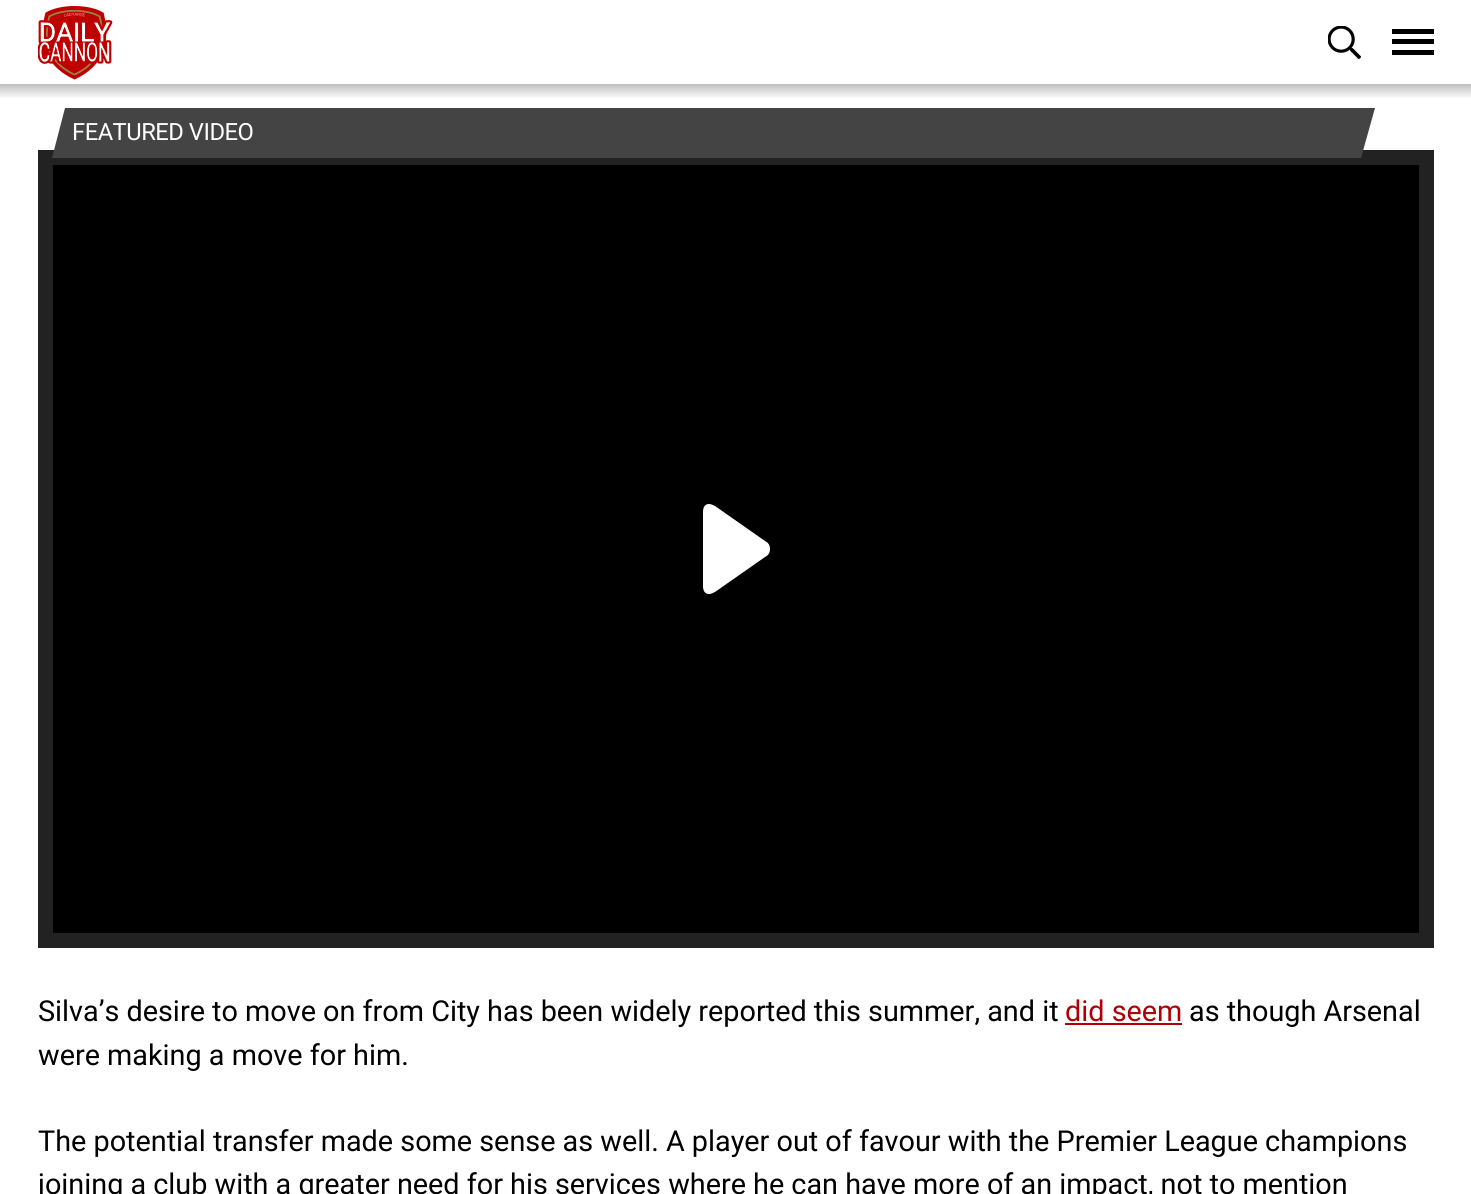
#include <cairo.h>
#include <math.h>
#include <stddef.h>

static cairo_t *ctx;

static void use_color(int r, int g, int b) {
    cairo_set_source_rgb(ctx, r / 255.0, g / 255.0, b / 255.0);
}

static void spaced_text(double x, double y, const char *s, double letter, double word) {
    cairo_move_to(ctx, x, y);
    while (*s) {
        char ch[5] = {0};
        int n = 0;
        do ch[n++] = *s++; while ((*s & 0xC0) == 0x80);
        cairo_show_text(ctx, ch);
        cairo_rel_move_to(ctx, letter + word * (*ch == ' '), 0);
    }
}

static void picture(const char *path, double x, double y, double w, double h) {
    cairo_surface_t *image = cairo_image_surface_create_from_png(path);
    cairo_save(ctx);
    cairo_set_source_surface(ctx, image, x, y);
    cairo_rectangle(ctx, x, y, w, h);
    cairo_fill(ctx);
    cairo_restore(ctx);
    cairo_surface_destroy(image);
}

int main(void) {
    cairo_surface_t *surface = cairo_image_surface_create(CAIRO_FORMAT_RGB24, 1471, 1194);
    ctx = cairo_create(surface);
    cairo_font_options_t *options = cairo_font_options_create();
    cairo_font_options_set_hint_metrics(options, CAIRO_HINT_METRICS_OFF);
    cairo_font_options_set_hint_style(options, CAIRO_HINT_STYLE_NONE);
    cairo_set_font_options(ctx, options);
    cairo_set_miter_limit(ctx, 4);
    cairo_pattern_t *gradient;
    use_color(255, 255, 255);
    cairo_paint(ctx);
    picture("img1.png", 38, 6, 75, 74);
    picture("img2.png", 1328, 26, 33, 33);
    use_color(0, 0, 0);
    cairo_rectangle(ctx, 1392, 29, 42, 5);
    cairo_fill(ctx);
    cairo_rectangle(ctx, 1392, 39, 42, 5);
    cairo_fill(ctx);
    cairo_rectangle(ctx, 1392, 50, 42, 5);
    cairo_fill(ctx);
    gradient = cairo_pattern_create_linear(736, 84, 736, 99);
    cairo_pattern_add_color_stop_rgba(gradient, 0, 0.749, 0.749, 0.749, 1);
    cairo_pattern_add_color_stop_rgba(gradient, 1, 1, 1, 1, 1);
    cairo_set_source(ctx, gradient);
    cairo_pattern_destroy(gradient);
    cairo_rectangle(ctx, 0, 84, 1471, 14);
    cairo_fill(ctx);
    use_color(34, 34, 34);
    cairo_rectangle(ctx, 38, 150, 1396, 798);
    cairo_fill(ctx);
    use_color(68, 68, 68);
    cairo_new_path(ctx);
    cairo_move_to(ctx, 65, 108);
    cairo_line_to(ctx, 1375, 108);
    cairo_line_to(ctx, 1361, 158);
    cairo_line_to(ctx, 52, 158);
    cairo_close_path(ctx);
    cairo_fill(ctx);
    cairo_select_font_face(ctx, "Roboto", CAIRO_FONT_SLANT_NORMAL, CAIRO_FONT_WEIGHT_NORMAL);
    cairo_set_font_size(ctx, 23.75);
    use_color(255, 255, 255);
    spaced_text(72, 140, "FEATURED VIDEO", -0.5, 0);
    use_color(0, 0, 0);
    cairo_rectangle(ctx, 53, 165, 1366, 768);
    cairo_fill(ctx);
    use_color(255, 255, 255);
    cairo_new_path(ctx);
    cairo_move_to(ctx, 765, 541);
    cairo_line_to(ctx, 715, 506);
    cairo_curve_to(ctx, 713, 505, 711, 504, 709, 504);
    cairo_curve_to(ctx, 705, 504, 703, 507, 703, 512);
    cairo_line_to(ctx, 703, 586);
    cairo_curve_to(ctx, 703, 591, 705, 594, 709, 594);
    cairo_curve_to(ctx, 711, 594, 713, 593, 715, 592);
    cairo_line_to(ctx, 765, 557);
    cairo_curve_to(ctx, 769, 555, 770, 552, 770, 549);
    cairo_curve_to(ctx, 770, 546, 769, 543, 765, 541);
    cairo_close_path(ctx);
    cairo_fill(ctx);
    cairo_set_font_size(ctx, 28.8);
    use_color(0, 0, 0);
    cairo_move_to(ctx, 38, 1021);
    cairo_show_text(ctx, "Silva’s desire to move on from City has been widely reported this summer, and it");
    use_color(175, 0, 5);
    cairo_move_to(ctx, 1065, 1021);
    cairo_show_text(ctx, "did seem");
    cairo_rectangle(ctx, 1065, 1023, 117, 2);
    cairo_fill(ctx);
    use_color(0, 0, 0);
    cairo_move_to(ctx, 1189, 1021);
    cairo_show_text(ctx, "as though Arsenal");
    cairo_move_to(ctx, 38, 1065);
    cairo_show_text(ctx, "were making a move for him.");
    cairo_move_to(ctx, 38, 1151);
    cairo_show_text(ctx, "The potential transfer made some sense as well. A player out of favour with the Premier League champions");
    cairo_move_to(ctx, 38, 1194);
    cairo_show_text(ctx, "joining a club with a greater need for his services where he can have more of an impact, not to mention");
    cairo_surface_write_to_png(surface, "result.png");
    cairo_font_options_destroy(options);
    cairo_destroy(ctx);
    cairo_surface_destroy(surface);
    return 0;
}
